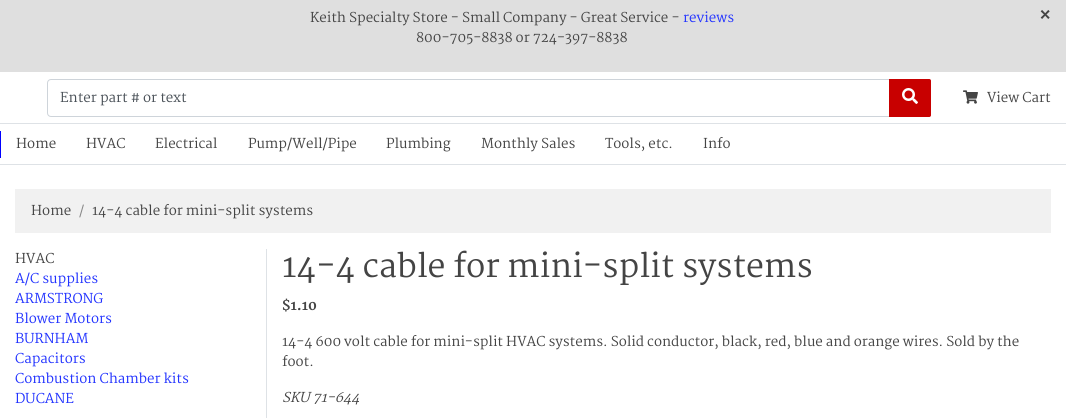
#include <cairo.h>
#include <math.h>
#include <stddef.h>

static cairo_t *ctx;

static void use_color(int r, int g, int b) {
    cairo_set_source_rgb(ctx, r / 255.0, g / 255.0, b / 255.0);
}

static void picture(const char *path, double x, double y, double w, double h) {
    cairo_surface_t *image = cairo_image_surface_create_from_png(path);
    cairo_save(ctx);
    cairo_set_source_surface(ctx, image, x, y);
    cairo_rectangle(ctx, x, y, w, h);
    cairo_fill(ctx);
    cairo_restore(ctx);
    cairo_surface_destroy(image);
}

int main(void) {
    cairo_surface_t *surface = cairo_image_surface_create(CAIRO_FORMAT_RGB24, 1066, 418);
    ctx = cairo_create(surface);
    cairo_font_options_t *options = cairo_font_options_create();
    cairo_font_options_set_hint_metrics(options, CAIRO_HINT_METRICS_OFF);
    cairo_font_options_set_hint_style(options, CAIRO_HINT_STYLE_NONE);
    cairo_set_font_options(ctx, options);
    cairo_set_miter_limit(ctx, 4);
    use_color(255, 255, 255);
    cairo_paint(ctx);
    use_color(223, 223, 223);
    cairo_rectangle(ctx, 0, 0, 1066, 72);
    cairo_fill(ctx);
    cairo_select_font_face(ctx, "Martel", CAIRO_FONT_SLANT_NORMAL, CAIRO_FONT_WEIGHT_NORMAL);
    cairo_set_font_size(ctx, 13.33);
    use_color(68, 68, 68);
    cairo_move_to(ctx, 310, 22);
    cairo_show_text(ctx, "Keith Specialty Store - Small Company - Great Service -");
    use_color(34, 51, 255);
    cairo_move_to(ctx, 683, 22);
    cairo_show_text(ctx, "reviews");
    use_color(68, 68, 68);
    cairo_move_to(ctx, 416, 42);
    cairo_show_text(ctx, "800-705-8838 or 724-397-8838");
    cairo_select_font_face(ctx, "Martel ExtraBold", CAIRO_FONT_SLANT_NORMAL, CAIRO_FONT_WEIGHT_NORMAL);
    cairo_set_font_size(ctx, 19);
    cairo_move_to(ctx, 1039, 22);
    cairo_show_text(ctx, "×");
    use_color(222, 226, 230);
    cairo_rectangle(ctx, 0, 164, 1066, 1);
    cairo_fill(ctx);
    cairo_new_path(ctx);
    cairo_move_to(ctx, 51, 79.5);
    cairo_line_to(ctx, 889.5, 79.5);
    cairo_line_to(ctx, 889.5, 116.5);
    cairo_line_to(ctx, 51, 116.5);
    cairo_curve_to(ctx, 49, 116.5, 47.5, 115, 47.5, 113);
    cairo_line_to(ctx, 47.5, 83);
    cairo_curve_to(ctx, 47.5, 81, 49, 79.5, 51, 79.5);
    cairo_close_path(ctx);
    use_color(206, 212, 218);
    cairo_set_line_width(ctx, 1);
    cairo_stroke(ctx);
    cairo_select_font_face(ctx, "Martel", CAIRO_FONT_SLANT_NORMAL, CAIRO_FONT_WEIGHT_NORMAL);
    cairo_set_font_size(ctx, 13.33);
    use_color(73, 80, 87);
    cairo_move_to(ctx, 60, 102);
    cairo_show_text(ctx, "Enter part # or text");
    use_color(200, 0, 0);
    cairo_new_path(ctx);
    cairo_move_to(ctx, 889.5, 79.5);
    cairo_line_to(ctx, 929, 79.5);
    cairo_curve_to(ctx, 930, 79.5, 930.5, 80, 930.5, 81);
    cairo_line_to(ctx, 930.5, 115);
    cairo_curve_to(ctx, 930.5, 116, 930, 116.5, 929, 116.5);
    cairo_line_to(ctx, 889.5, 116.5);
    cairo_close_path(ctx);
    cairo_fill_preserve(ctx);
    cairo_stroke(ctx);
    picture("img1.png", 902, 88, 16, 16);
    picture("img2.png", 963, 90, 15, 14);
    use_color(68, 68, 68);
    cairo_move_to(ctx, 987, 102);
    cairo_show_text(ctx, "View Cart");
    use_color(222, 226, 230);
    cairo_rectangle(ctx, 0, 123, 1066, 1);
    cairo_fill(ctx);
    use_color(0, 0, 255);
    cairo_rectangle(ctx, 0, 131, 1, 27);
    cairo_fill(ctx);
    use_color(68, 68, 68);
    cairo_move_to(ctx, 16, 148);
    cairo_show_text(ctx, "Home");
    cairo_move_to(ctx, 86, 148);
    cairo_show_text(ctx, "HVAC");
    cairo_move_to(ctx, 155, 148);
    cairo_show_text(ctx, "Electrical");
    cairo_move_to(ctx, 248, 148);
    cairo_show_text(ctx, "Pump/Well/Pipe");
    cairo_move_to(ctx, 386, 148);
    cairo_show_text(ctx, "Plumbing");
    cairo_move_to(ctx, 481, 148);
    cairo_show_text(ctx, "Monthly Sales");
    cairo_move_to(ctx, 605, 148);
    cairo_show_text(ctx, "Tools, etc.");
    cairo_move_to(ctx, 703, 148);
    cairo_show_text(ctx, "Info");
    use_color(241, 241, 241);
    cairo_rectangle(ctx, 15, 189, 1036, 44);
    cairo_fill(ctx);
    use_color(68, 68, 68);
    cairo_move_to(ctx, 31, 215);
    cairo_show_text(ctx, "Home");
    use_color(136, 136, 136);
    cairo_move_to(ctx, 79, 215);
    cairo_show_text(ctx, "/");
    use_color(68, 68, 68);
    cairo_move_to(ctx, 92, 215);
    cairo_show_text(ctx, "14-4 cable for mini-split systems");
    use_color(222, 226, 230);
    cairo_rectangle(ctx, 266, 249, 1, 169);
    cairo_fill(ctx);
    use_color(68, 68, 68);
    cairo_move_to(ctx, 15, 263);
    cairo_show_text(ctx, "HVAC");
    use_color(34, 51, 255);
    cairo_move_to(ctx, 15, 283);
    cairo_show_text(ctx, "A/C supplies");
    cairo_move_to(ctx, 15, 303);
    cairo_show_text(ctx, "ARMSTRONG");
    cairo_move_to(ctx, 15, 323);
    cairo_show_text(ctx, "Blower Motors");
    cairo_move_to(ctx, 15, 343);
    cairo_show_text(ctx, "BURNHAM");
    cairo_move_to(ctx, 15, 363);
    cairo_show_text(ctx, "Capacitors");
    cairo_move_to(ctx, 15, 383);
    cairo_show_text(ctx, "Combustion Chamber kits");
    cairo_move_to(ctx, 15, 403);
    cairo_show_text(ctx, "DUCANE");
    cairo_set_font_size(ctx, 32);
    use_color(68, 68, 68);
    cairo_move_to(ctx, 282, 277);
    cairo_show_text(ctx, "14-4 cable for mini-split systems");
    cairo_select_font_face(ctx, "Martel ExtraBold", CAIRO_FONT_SLANT_NORMAL, CAIRO_FONT_WEIGHT_NORMAL);
    cairo_set_font_size(ctx, 13.33);
    cairo_move_to(ctx, 282, 310);
    cairo_show_text(ctx, "$1.10");
    cairo_select_font_face(ctx, "Martel", CAIRO_FONT_SLANT_NORMAL, CAIRO_FONT_WEIGHT_NORMAL);
    cairo_move_to(ctx, 282, 346);
    cairo_show_text(ctx, "14-4 600 volt cable for mini-split HVAC systems. Solid conductor, black, red, blue and orange wires. Sold by the");
    cairo_move_to(ctx, 282, 366);
    cairo_show_text(ctx, "foot.");
    cairo_select_font_face(ctx, "Martel", CAIRO_FONT_SLANT_ITALIC, CAIRO_FONT_WEIGHT_NORMAL);
    cairo_move_to(ctx, 282, 402);
    cairo_show_text(ctx, "SKU 71-644");
    cairo_surface_write_to_png(surface, "result.png");
    cairo_font_options_destroy(options);
    cairo_destroy(ctx);
    cairo_surface_destroy(surface);
    return 0;
}
